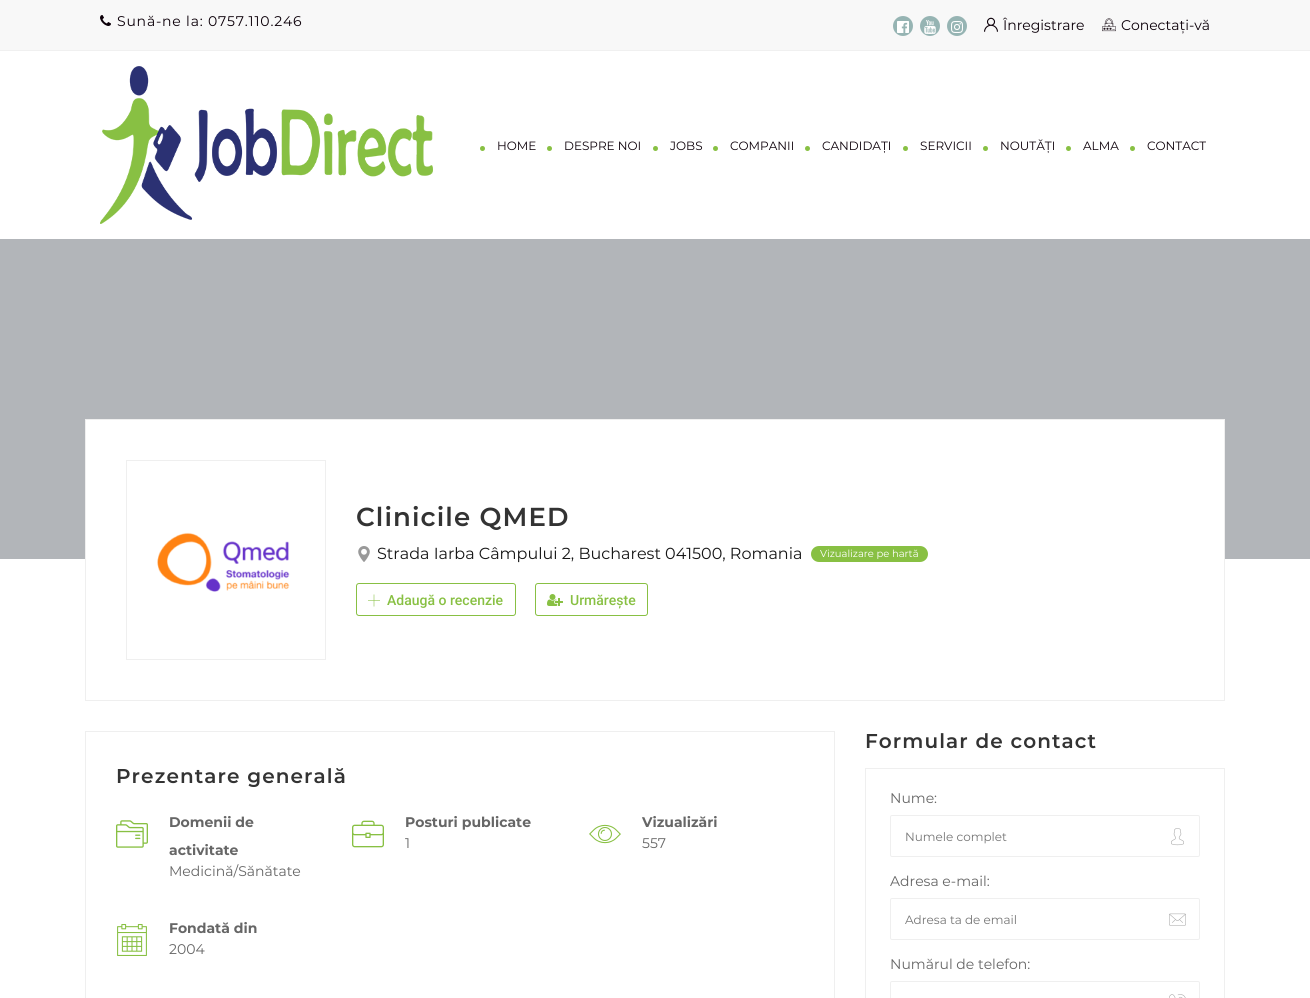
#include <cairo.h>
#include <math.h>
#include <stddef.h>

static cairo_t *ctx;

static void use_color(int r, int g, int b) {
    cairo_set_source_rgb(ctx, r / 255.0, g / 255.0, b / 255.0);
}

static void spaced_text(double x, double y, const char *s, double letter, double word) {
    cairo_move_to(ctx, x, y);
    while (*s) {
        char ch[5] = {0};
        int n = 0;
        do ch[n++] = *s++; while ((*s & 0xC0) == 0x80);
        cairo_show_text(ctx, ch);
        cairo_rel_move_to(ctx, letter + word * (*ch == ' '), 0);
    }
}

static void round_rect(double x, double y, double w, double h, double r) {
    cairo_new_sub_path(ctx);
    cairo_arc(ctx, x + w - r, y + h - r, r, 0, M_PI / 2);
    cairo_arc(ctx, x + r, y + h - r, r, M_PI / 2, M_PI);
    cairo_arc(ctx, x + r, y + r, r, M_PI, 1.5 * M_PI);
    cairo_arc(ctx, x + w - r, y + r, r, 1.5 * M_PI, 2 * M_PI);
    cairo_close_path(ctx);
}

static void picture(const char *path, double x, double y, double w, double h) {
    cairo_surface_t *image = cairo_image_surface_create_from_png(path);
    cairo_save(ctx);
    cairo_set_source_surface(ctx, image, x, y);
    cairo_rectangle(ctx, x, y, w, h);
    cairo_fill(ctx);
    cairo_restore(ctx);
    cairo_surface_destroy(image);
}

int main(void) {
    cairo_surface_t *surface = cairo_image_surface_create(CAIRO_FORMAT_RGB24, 1310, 998);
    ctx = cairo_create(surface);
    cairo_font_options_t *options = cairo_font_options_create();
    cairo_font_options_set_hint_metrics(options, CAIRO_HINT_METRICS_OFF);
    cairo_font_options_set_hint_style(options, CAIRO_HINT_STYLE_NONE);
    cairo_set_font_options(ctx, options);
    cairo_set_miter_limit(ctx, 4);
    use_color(255, 255, 255);
    cairo_paint(ctx);
    use_color(248, 248, 248);
    cairo_rectangle(ctx, 0, 0, 1310, 50);
    cairo_fill(ctx);
    use_color(240, 240, 240);
    cairo_rectangle(ctx, 0, 50, 1310, 1);
    cairo_fill(ctx);
    picture("img1.png", 100, 15, 11, 11);
    cairo_select_font_face(ctx, "Montserrat", CAIRO_FONT_SLANT_NORMAL, CAIRO_FONT_WEIGHT_NORMAL);
    cairo_set_font_size(ctx, 14);
    use_color(12, 0, 9);
    spaced_text(117, 26, "Sună-ne la: 0757.110.246", 0.8, 0);
    use_color(150, 180, 179);
    cairo_new_path(ctx);
    cairo_arc(ctx, 903, 26, 10, 0, 2 * M_PI);
    cairo_fill(ctx);
    picture("img2.png", 897, 21, 12, 12);
    cairo_arc(ctx, 930, 26, 10, 0, 2 * M_PI);
    cairo_fill(ctx);
    picture("img3.png", 924, 20, 12, 14);
    cairo_arc(ctx, 957, 26, 10, 0, 2 * M_PI);
    cairo_fill(ctx);
    picture("img4.png", 951, 21, 12, 12);
    picture("img5.png", 984, 17, 14, 15);
    use_color(12, 0, 9);
    cairo_move_to(ctx, 1003, 30);
    cairo_show_text(ctx, "Înregistrare");
    picture("img6.png", 1102, 18, 14, 14);
    cairo_move_to(ctx, 1121, 30);
    cairo_show_text(ctx, "Conectați-vă");
    picture("img7.png", 100, 66, 333, 158);
    use_color(136, 192, 67);
    cairo_arc(ctx, 482.5, 148.5, 2.5, 0, 2 * M_PI);
    cairo_fill(ctx);
    cairo_set_font_size(ctx, 12);
    use_color(12, 0, 9);
    cairo_move_to(ctx, 497, 150);
    cairo_show_text(ctx, "HOME");
    use_color(136, 192, 67);
    cairo_new_path(ctx);
    cairo_arc(ctx, 549.5, 148.5, 2.5, 0, 2 * M_PI);
    cairo_fill(ctx);
    use_color(12, 0, 9);
    cairo_move_to(ctx, 564, 150);
    cairo_show_text(ctx, "DESPRE NOI");
    use_color(136, 192, 67);
    cairo_new_path(ctx);
    cairo_arc(ctx, 655.5, 148.5, 2.5, 0, 2 * M_PI);
    cairo_fill(ctx);
    use_color(12, 0, 9);
    cairo_move_to(ctx, 670, 150);
    cairo_show_text(ctx, "JOBS");
    use_color(136, 192, 67);
    cairo_new_path(ctx);
    cairo_arc(ctx, 715.5, 148.5, 2.5, 0, 2 * M_PI);
    cairo_fill(ctx);
    use_color(12, 0, 9);
    cairo_move_to(ctx, 730, 150);
    cairo_show_text(ctx, "COMPANII");
    use_color(136, 192, 67);
    cairo_new_path(ctx);
    cairo_arc(ctx, 807.5, 148.5, 2.5, 0, 2 * M_PI);
    cairo_fill(ctx);
    use_color(12, 0, 9);
    cairo_move_to(ctx, 822, 150);
    cairo_show_text(ctx, "CANDIDAȚI");
    use_color(136, 192, 67);
    cairo_new_path(ctx);
    cairo_arc(ctx, 905.5, 148.5, 2.5, 0, 2 * M_PI);
    cairo_fill(ctx);
    use_color(12, 0, 9);
    cairo_move_to(ctx, 920, 150);
    cairo_show_text(ctx, "SERVICII");
    use_color(136, 192, 67);
    cairo_new_path(ctx);
    cairo_arc(ctx, 985.5, 148.5, 2.5, 0, 2 * M_PI);
    cairo_fill(ctx);
    use_color(12, 0, 9);
    cairo_move_to(ctx, 1000, 150);
    cairo_show_text(ctx, "NOUTĂȚI");
    use_color(136, 192, 67);
    cairo_new_path(ctx);
    cairo_arc(ctx, 1068.5, 148.5, 2.5, 0, 2 * M_PI);
    cairo_fill(ctx);
    use_color(12, 0, 9);
    cairo_move_to(ctx, 1083, 150);
    cairo_show_text(ctx, "ALMA");
    use_color(136, 192, 67);
    cairo_new_path(ctx);
    cairo_arc(ctx, 1132.5, 148.5, 2.5, 0, 2 * M_PI);
    cairo_fill(ctx);
    use_color(12, 0, 9);
    cairo_move_to(ctx, 1147, 150);
    cairo_show_text(ctx, "CONTACT");
    use_color(178, 181, 185);
    cairo_rectangle(ctx, 0, 239, 1310, 320);
    cairo_fill(ctx);
    use_color(255, 255, 255);
    cairo_rectangle(ctx, 86, 420, 1138, 139);
    cairo_fill(ctx);
    cairo_rectangle(ctx, 85.5, 419.5, 1139, 281);
    use_color(239, 239, 239);
    cairo_set_line_width(ctx, 1);
    cairo_stroke(ctx);
    cairo_rectangle(ctx, 126.5, 460.5, 199, 199);
    cairo_stroke(ctx);
    picture("img8.png", 157, 532, 133, 60);
    cairo_select_font_face(ctx, "Montserrat SemiBold", CAIRO_FONT_SLANT_NORMAL, CAIRO_FONT_WEIGHT_NORMAL);
    cairo_set_font_size(ctx, 26);
    use_color(51, 51, 51);
    spaced_text(356, 526, "Clinicile QMED", 1.1, 0);
    picture("img9.png", 358, 546, 12, 16);
    cairo_select_font_face(ctx, "Montserrat", CAIRO_FONT_SLANT_NORMAL, CAIRO_FONT_WEIGHT_NORMAL);
    cairo_set_font_size(ctx, 16);
    use_color(22, 22, 22);
    cairo_move_to(ctx, 377, 559);
    cairo_show_text(ctx, "Strada Iarba Câmpului 2, Bucharest 041500, Romania");
    use_color(136, 192, 67);
    round_rect(811, 546, 117, 16, 8);
    cairo_fill(ctx);
    cairo_set_font_size(ctx, 10);
    use_color(255, 255, 255);
    cairo_move_to(ctx, 820, 557);
    cairo_show_text(ctx, "Vizualizare pe hartă");
    round_rect(356.5, 583.5, 159, 32, 2.5);
    use_color(136, 192, 67);
    cairo_stroke(ctx);
    picture("img10.png", 368, 594, 12, 13);
    cairo_select_font_face(ctx, "Roboto Medium", CAIRO_FONT_SLANT_NORMAL, CAIRO_FONT_WEIGHT_NORMAL);
    cairo_set_font_size(ctx, 14);
    cairo_move_to(ctx, 387, 605);
    cairo_show_text(ctx, "Adaugă o recenzie");
    round_rect(535.5, 583.5, 112, 32, 2.5);
    cairo_stroke(ctx);
    picture("img11.png", 547, 594, 16, 12);
    cairo_move_to(ctx, 570, 605);
    cairo_show_text(ctx, "Urmărește");
    cairo_rectangle(ctx, 85.5, 731.5, 749, 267);
    use_color(239, 239, 239);
    cairo_stroke(ctx);
    cairo_select_font_face(ctx, "Montserrat SemiBold", CAIRO_FONT_SLANT_NORMAL, CAIRO_FONT_WEIGHT_NORMAL);
    cairo_set_font_size(ctx, 20);
    use_color(51, 51, 51);
    spaced_text(116, 783, "Prezentare generală", 1.1, 0);
    picture("img12.png", 116, 820, 32, 28);
    cairo_select_font_face(ctx, "Montserrat", CAIRO_FONT_SLANT_NORMAL, CAIRO_FONT_WEIGHT_BOLD);
    cairo_set_font_size(ctx, 14);
    use_color(102, 102, 102);
    cairo_move_to(ctx, 169, 827);
    cairo_show_text(ctx, "Domenii de");
    cairo_move_to(ctx, 169, 855);
    cairo_show_text(ctx, "activitate");
    cairo_select_font_face(ctx, "Montserrat", CAIRO_FONT_SLANT_NORMAL, CAIRO_FONT_WEIGHT_NORMAL);
    cairo_move_to(ctx, 169, 876);
    cairo_show_text(ctx, "Medicină/Sănătate");
    picture("img13.png", 352, 820, 32, 28);
    cairo_select_font_face(ctx, "Montserrat", CAIRO_FONT_SLANT_NORMAL, CAIRO_FONT_WEIGHT_BOLD);
    cairo_move_to(ctx, 405, 827);
    cairo_show_text(ctx, "Posturi publicate");
    cairo_select_font_face(ctx, "Montserrat", CAIRO_FONT_SLANT_NORMAL, CAIRO_FONT_WEIGHT_NORMAL);
    cairo_move_to(ctx, 405, 848);
    cairo_show_text(ctx, "1");
    picture("img14.png", 589, 824, 32, 20);
    cairo_select_font_face(ctx, "Montserrat", CAIRO_FONT_SLANT_NORMAL, CAIRO_FONT_WEIGHT_BOLD);
    cairo_move_to(ctx, 642, 827);
    cairo_show_text(ctx, "Vizualizări");
    cairo_select_font_face(ctx, "Montserrat", CAIRO_FONT_SLANT_NORMAL, CAIRO_FONT_WEIGHT_NORMAL);
    cairo_move_to(ctx, 642, 848);
    cairo_show_text(ctx, "557");
    picture("img15.png", 117, 924, 30, 32);
    cairo_select_font_face(ctx, "Montserrat", CAIRO_FONT_SLANT_NORMAL, CAIRO_FONT_WEIGHT_BOLD);
    cairo_move_to(ctx, 169, 933);
    cairo_show_text(ctx, "Fondată din");
    cairo_select_font_face(ctx, "Montserrat", CAIRO_FONT_SLANT_NORMAL, CAIRO_FONT_WEIGHT_NORMAL);
    cairo_move_to(ctx, 169, 954);
    cairo_show_text(ctx, "2004");
    cairo_select_font_face(ctx, "Montserrat SemiBold", CAIRO_FONT_SLANT_NORMAL, CAIRO_FONT_WEIGHT_NORMAL);
    cairo_set_font_size(ctx, 20);
    use_color(51, 51, 51);
    spaced_text(865, 748, "Formular de contact", 1.1, 0);
    cairo_rectangle(ctx, 865.5, 768.5, 359, 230);
    use_color(239, 239, 239);
    cairo_stroke(ctx);
    cairo_select_font_face(ctx, "Montserrat", CAIRO_FONT_SLANT_NORMAL, CAIRO_FONT_WEIGHT_NORMAL);
    cairo_set_font_size(ctx, 14);
    use_color(102, 102, 102);
    cairo_move_to(ctx, 890, 803);
    cairo_show_text(ctx, "Nume:");
    round_rect(890.5, 815.5, 309, 41, 1.5);
    use_color(239, 239, 239);
    cairo_stroke(ctx);
    cairo_set_font_size(ctx, 12);
    use_color(117, 117, 117);
    cairo_move_to(ctx, 905, 841);
    cairo_show_text(ctx, "Numele complet");
    picture("img16.png", 1171, 828, 13, 18);
    cairo_set_font_size(ctx, 14);
    use_color(102, 102, 102);
    cairo_move_to(ctx, 890, 886);
    cairo_show_text(ctx, "Adresa e-mail:");
    round_rect(890.5, 898.5, 309, 41, 1.5);
    use_color(239, 239, 239);
    cairo_stroke(ctx);
    cairo_set_font_size(ctx, 12);
    use_color(117, 117, 117);
    cairo_move_to(ctx, 905, 924);
    cairo_show_text(ctx, "Adresa ta de email");
    picture("img17.png", 1169, 913, 17, 13);
    cairo_set_font_size(ctx, 14);
    use_color(102, 102, 102);
    cairo_move_to(ctx, 890, 969);
    cairo_show_text(ctx, "Numărul de telefon:");
    round_rect(890.5, 981.5, 309, 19, 1.5);
    use_color(239, 239, 239);
    cairo_stroke(ctx);
    picture("img18.png", 1169, 994, 17, 4);
    cairo_surface_write_to_png(surface, "result.png");
    cairo_font_options_destroy(options);
    cairo_destroy(ctx);
    cairo_surface_destroy(surface);
    return 0;
}
